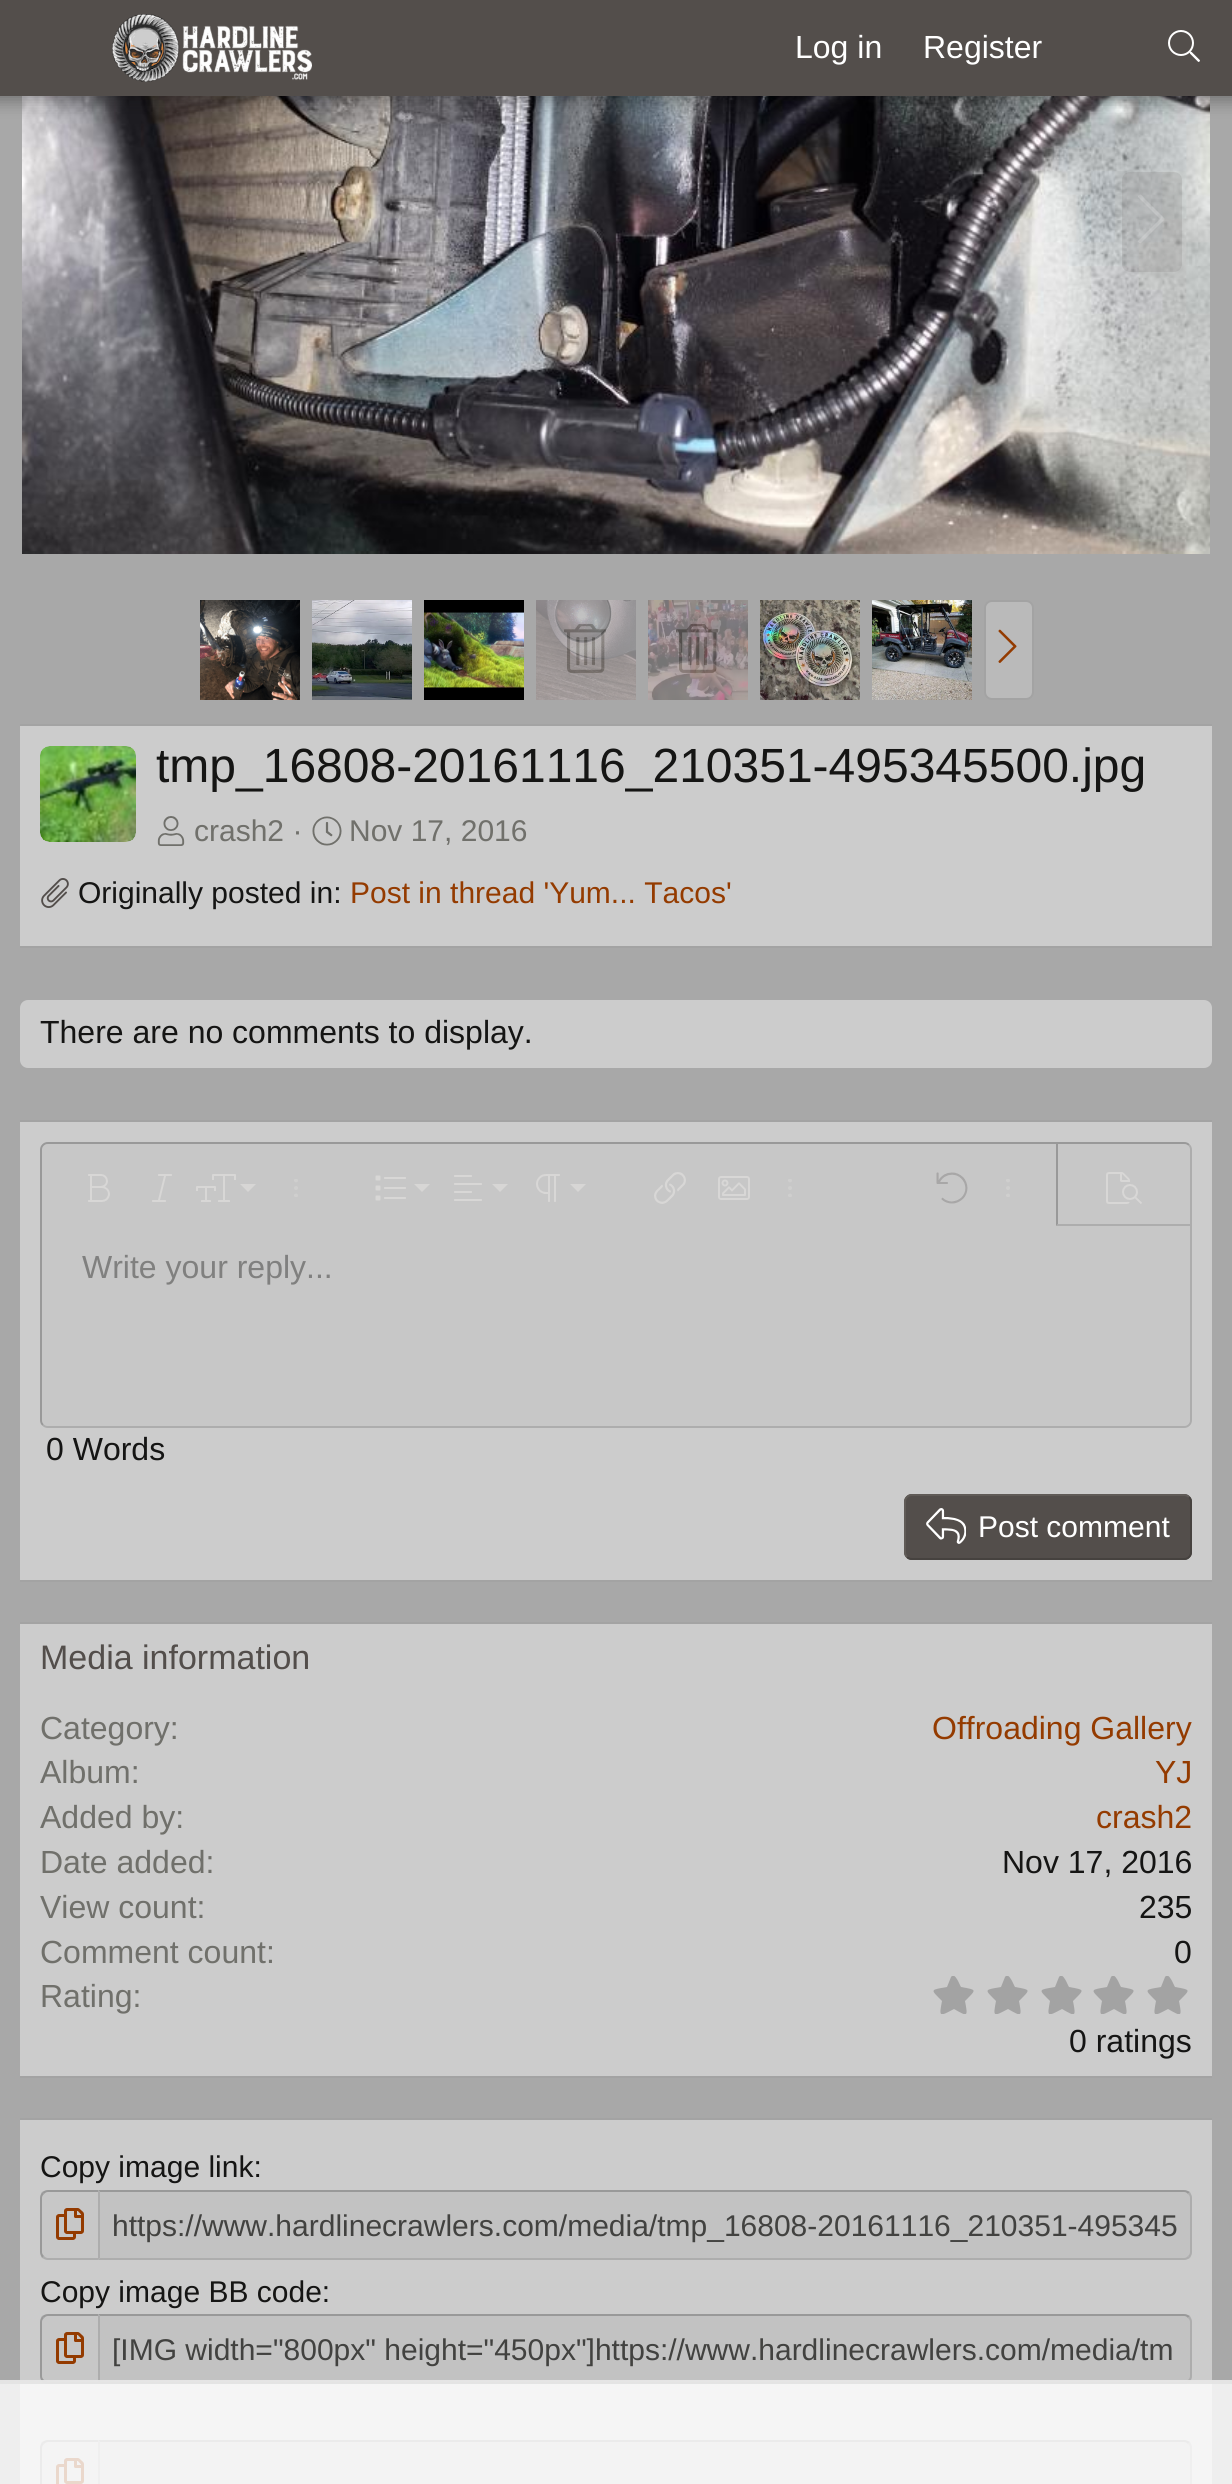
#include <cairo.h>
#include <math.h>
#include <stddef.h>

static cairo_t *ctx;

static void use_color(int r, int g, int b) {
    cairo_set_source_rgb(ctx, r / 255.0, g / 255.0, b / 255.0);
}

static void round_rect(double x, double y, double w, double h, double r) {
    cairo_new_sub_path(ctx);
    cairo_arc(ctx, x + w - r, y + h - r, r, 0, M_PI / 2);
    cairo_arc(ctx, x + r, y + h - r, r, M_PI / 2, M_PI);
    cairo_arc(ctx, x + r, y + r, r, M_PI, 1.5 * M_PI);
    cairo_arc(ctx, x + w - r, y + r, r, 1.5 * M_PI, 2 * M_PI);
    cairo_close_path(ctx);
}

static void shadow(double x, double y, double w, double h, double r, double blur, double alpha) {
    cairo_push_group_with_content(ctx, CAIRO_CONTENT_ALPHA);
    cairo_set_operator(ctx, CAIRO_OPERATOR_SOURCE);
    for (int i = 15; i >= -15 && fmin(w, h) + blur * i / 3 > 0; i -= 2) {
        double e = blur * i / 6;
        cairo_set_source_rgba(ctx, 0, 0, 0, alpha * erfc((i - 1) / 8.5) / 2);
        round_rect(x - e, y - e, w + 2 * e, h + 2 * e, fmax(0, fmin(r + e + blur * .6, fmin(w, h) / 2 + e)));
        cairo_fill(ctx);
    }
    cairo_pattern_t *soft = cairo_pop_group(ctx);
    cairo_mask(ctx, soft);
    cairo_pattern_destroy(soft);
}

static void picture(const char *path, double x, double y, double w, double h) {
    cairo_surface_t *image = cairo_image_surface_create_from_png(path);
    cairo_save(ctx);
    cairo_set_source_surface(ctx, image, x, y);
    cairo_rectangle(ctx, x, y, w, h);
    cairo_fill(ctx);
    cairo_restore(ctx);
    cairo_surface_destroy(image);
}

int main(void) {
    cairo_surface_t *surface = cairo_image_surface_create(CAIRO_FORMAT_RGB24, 1232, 2484);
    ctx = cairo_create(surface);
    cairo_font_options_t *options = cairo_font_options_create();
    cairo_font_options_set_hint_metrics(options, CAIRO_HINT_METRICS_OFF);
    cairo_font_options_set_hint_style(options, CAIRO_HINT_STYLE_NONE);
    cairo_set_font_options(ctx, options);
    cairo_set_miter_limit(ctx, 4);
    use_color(168, 168, 168);
    cairo_paint(ctx);
    picture("img3.png", 22, 96, 1188, 458);
    use_color(0, 0, 0);
    shadow(-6, -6, 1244, 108, 0, 8, 0.3);
    use_color(83, 78, 75);
    cairo_rectangle(ctx, 0, 0, 1232, 96);
    cairo_fill(ctx);
    picture("img1.png", 112, 14, 200, 68);
    cairo_select_font_face(ctx, "Liberation Sans", CAIRO_FONT_SLANT_NORMAL, CAIRO_FONT_WEIGHT_NORMAL);
    cairo_set_font_size(ctx, 32);
    use_color(255, 255, 255);
    cairo_move_to(ctx, 795, 58);
    cairo_show_text(ctx, "Log in");
    cairo_move_to(ctx, 923, 58);
    cairo_show_text(ctx, "Register");
    picture("img2.png", 1168, 30, 32, 32);
    cairo_set_source_rgba(ctx, 0.365, 0.361, 0.357, 0.14);
    round_rect(1122, 172, 60, 100, 8);
    cairo_fill(ctx);
    cairo_set_source_rgba(ctx, 1, 1, 1, 0.2);
    cairo_new_path(ctx);
    cairo_move_to(ctx, 1139, 195);
    cairo_line_to(ctx, 1138, 196);
    cairo_curve_to(ctx, 1138, 196, 1138, 197, 1138, 197);
    cairo_line_to(ctx, 1160, 219);
    cairo_line_to(ctx, 1138, 241);
    cairo_curve_to(ctx, 1138, 242, 1140, 244, 1141, 243);
    cairo_line_to(ctx, 1160, 224);
    cairo_curve_to(ctx, 1166, 218, 1166, 220, 1160, 214);
    cairo_line_to(ctx, 1145, 199);
    cairo_curve_to(ctx, 1143, 197, 1141, 193, 1139, 195);
    cairo_close_path(ctx);
    cairo_fill(ctx);
    picture("img4.png", 200, 600, 100, 100);
    picture("img5.png", 312, 600, 100, 100);
    picture("img6.png", 424, 600, 100, 100);
    picture("img8.png", 564, 624, 42, 49);
    picture("img7.png", 536, 600, 100, 100);
    picture("img8.png", 676, 624, 42, 49);
    picture("img9.png", 648, 600, 100, 100);
    picture("img10.png", 760, 600, 100, 100);
    picture("img11.png", 872, 600, 100, 100);
    use_color(186, 186, 186);
    round_rect(985, 601, 48, 98, 7);
    cairo_fill_preserve(ctx);
    use_color(163, 163, 163);
    cairo_stroke(ctx);
    picture("img12.png", 998, 629, 19, 34);
    use_color(204, 204, 204);
    cairo_rectangle(ctx, 20, 726, 1192, 220);
    cairo_fill(ctx);
    use_color(163, 163, 163);
    cairo_rectangle(ctx, 20, 724, 1192, 2);
    cairo_fill(ctx);
    cairo_rectangle(ctx, 20, 946, 1192, 2);
    cairo_fill(ctx);
    picture("img13.png", 40, 746, 96, 96);
    cairo_set_font_size(ctx, 48);
    use_color(21, 21, 20);
    cairo_move_to(ctx, 156, 782);
    cairo_show_text(ctx, "tmp_16808-20161116_210351-495345500.jpg");
    picture("img14.png", 157, 816, 28, 30);
    cairo_set_font_size(ctx, 30);
    use_color(112, 112, 107);
    cairo_move_to(ctx, 194, 841);
    cairo_show_text(ctx, "crash2 ·");
    picture("img15.png", 312, 816, 30, 30);
    cairo_move_to(ctx, 349, 841);
    cairo_show_text(ctx, "Nov 17, 2016");
    picture("img16.png", 41, 878, 28, 30);
    use_color(21, 21, 20);
    cairo_move_to(ctx, 78, 903);
    cairo_show_text(ctx, "Originally posted in:");
    use_color(148, 59, 0);
    cairo_move_to(ctx, 350, 903);
    cairo_show_text(ctx, "Post in thread 'Yum... Tacos'");
    use_color(204, 204, 204);
    round_rect(20, 1000, 1192, 68, 8);
    cairo_fill(ctx);
    cairo_set_font_size(ctx, 32);
    use_color(21, 21, 20);
    cairo_move_to(ctx, 40, 1043);
    cairo_show_text(ctx, "There are no comments to display.");
    use_color(204, 204, 204);
    cairo_rectangle(ctx, 20, 1122, 1192, 458);
    cairo_fill(ctx);
    use_color(163, 163, 163);
    cairo_rectangle(ctx, 20, 1120, 1192, 2);
    cairo_fill(ctx);
    cairo_rectangle(ctx, 20, 1580, 1192, 2);
    cairo_fill(ctx);
    use_color(199, 199, 199);
    round_rect(42, 1144, 1148, 282, 6);
    cairo_fill(ctx);
    cairo_new_path(ctx);
    cairo_move_to(ctx, 1189, 1145);
    cairo_curve_to(ctx, 1190.5, 1146.5, 1191, 1148, 1191, 1150);
    cairo_line_to(ctx, 1191, 1420);
    cairo_curve_to(ctx, 1191, 1422, 1190.5, 1423.5, 1189, 1425);
    cairo_curve_to(ctx, 1187.5, 1426.5, 1186, 1427, 1184, 1427);
    cairo_line_to(ctx, 48, 1427);
    cairo_curve_to(ctx, 46, 1427, 44.5, 1426.5, 43, 1425);
    use_color(173, 173, 173);
    cairo_stroke(ctx);
    cairo_new_path(ctx);
    cairo_move_to(ctx, 43, 1425);
    cairo_curve_to(ctx, 41.5, 1423.5, 41, 1422, 41, 1420);
    cairo_line_to(ctx, 41, 1150);
    cairo_curve_to(ctx, 41, 1148, 41.5, 1146.5, 43, 1145);
    cairo_curve_to(ctx, 44.5, 1143.5, 46, 1143, 48, 1143);
    cairo_line_to(ctx, 1184, 1143);
    cairo_curve_to(ctx, 1186, 1143, 1187.5, 1143.5, 1189, 1145);
    use_color(153, 153, 153);
    cairo_stroke(ctx);
    picture("img17.png", 88, 1174, 22, 28);
    picture("img18.png", 152, 1174, 20, 28);
    picture("img19.png", 196, 1174, 40, 28);
    use_color(215, 214, 213);
    cairo_new_path(ctx);
    cairo_move_to(ctx, 240, 1184);
    cairo_line_to(ctx, 256, 1184);
    cairo_line_to(ctx, 248, 1192);
    cairo_close_path(ctx);
    cairo_fill(ctx);
    picture("img20.png", 294, 1179, 4, 18);
    picture("img21.png", 375, 1175, 31, 26);
    cairo_new_path(ctx);
    cairo_move_to(ctx, 414, 1184);
    cairo_line_to(ctx, 430, 1184);
    cairo_line_to(ctx, 422, 1192);
    cairo_close_path(ctx);
    cairo_fill(ctx);
    picture("img22.png", 454, 1175, 28, 26);
    cairo_new_path(ctx);
    cairo_move_to(ctx, 492, 1184);
    cairo_line_to(ctx, 508, 1184);
    cairo_line_to(ctx, 500, 1192);
    cairo_close_path(ctx);
    cairo_fill(ctx);
    picture("img23.png", 536, 1174, 24, 28);
    cairo_new_path(ctx);
    cairo_move_to(ctx, 570, 1184);
    cairo_line_to(ctx, 586, 1184);
    cairo_line_to(ctx, 578, 1192);
    cairo_close_path(ctx);
    cairo_fill(ctx);
    picture("img24.png", 654, 1172, 32, 32);
    picture("img25.png", 718, 1176, 32, 24);
    picture("img20.png", 788, 1179, 4, 18);
    picture("img26.png", 936, 1172, 32, 32);
    picture("img20.png", 1006, 1179, 4, 18);
    use_color(173, 173, 173);
    cairo_new_path(ctx);
    cairo_move_to(ctx, 1190, 1226);
    cairo_line_to(ctx, 1190, 1224);
    cairo_line_to(ctx, 1058, 1224);
    cairo_line_to(ctx, 1056, 1226);
    cairo_close_path(ctx);
    cairo_fill(ctx);
    use_color(153, 153, 153);
    cairo_new_path(ctx);
    cairo_move_to(ctx, 1056, 1144);
    cairo_line_to(ctx, 1058, 1144);
    cairo_line_to(ctx, 1058, 1224);
    cairo_line_to(ctx, 1056, 1226);
    cairo_close_path(ctx);
    cairo_fill(ctx);
    picture("img27.png", 1106, 1172, 36, 32);
    use_color(128, 128, 127);
    cairo_move_to(ctx, 82, 1278);
    cairo_show_text(ctx, "Write your reply...");
    use_color(21, 21, 20);
    cairo_move_to(ctx, 46, 1460);
    cairo_show_text(ctx, "0 Words");
    use_color(83, 78, 75);
    round_rect(904, 1494, 288, 66, 8);
    cairo_fill(ctx);
    cairo_new_path(ctx);
    cairo_move_to(ctx, 1189, 1497);
    cairo_curve_to(ctx, 1190.5, 1498.5, 1191, 1500, 1191, 1502);
    cairo_line_to(ctx, 1191, 1552);
    cairo_curve_to(ctx, 1191, 1554, 1190.5, 1555.5, 1189, 1557);
    cairo_curve_to(ctx, 1187.5, 1558.5, 1186, 1559, 1184, 1559);
    cairo_line_to(ctx, 912, 1559);
    cairo_curve_to(ctx, 910, 1559, 908.5, 1558.5, 907, 1557);
    use_color(70, 66, 63);
    cairo_stroke(ctx);
    cairo_new_path(ctx);
    cairo_move_to(ctx, 907, 1557);
    cairo_curve_to(ctx, 905.5, 1555.5, 905, 1554, 905, 1552);
    cairo_line_to(ctx, 905, 1502);
    cairo_curve_to(ctx, 905, 1500, 905.5, 1498.5, 907, 1497);
    cairo_curve_to(ctx, 908.5, 1495.5, 910, 1495, 912, 1495);
    cairo_line_to(ctx, 1184, 1495);
    cairo_curve_to(ctx, 1186, 1495, 1187.5, 1495.5, 1189, 1497);
    use_color(96, 91, 87);
    cairo_stroke(ctx);
    picture("img28.png", 926, 1508, 40, 36);
    cairo_set_font_size(ctx, 30);
    use_color(255, 255, 255);
    cairo_move_to(ctx, 978, 1537);
    cairo_show_text(ctx, "Post comment");
    use_color(204, 204, 204);
    cairo_rectangle(ctx, 20, 1624, 1192, 452);
    cairo_fill(ctx);
    use_color(163, 163, 163);
    cairo_rectangle(ctx, 20, 1622, 1192, 2);
    cairo_fill(ctx);
    cairo_rectangle(ctx, 20, 2076, 1192, 2);
    cairo_fill(ctx);
    cairo_set_font_size(ctx, 34);
    use_color(83, 78, 75);
    cairo_move_to(ctx, 40, 1669);
    cairo_show_text(ctx, "Media information");
    cairo_set_font_size(ctx, 32);
    use_color(112, 112, 107);
    cairo_move_to(ctx, 40, 1739);
    cairo_show_text(ctx, "Category:");
    use_color(148, 59, 0);
    cairo_move_to(ctx, 932, 1739);
    cairo_show_text(ctx, "Offroading Gallery");
    use_color(112, 112, 107);
    cairo_move_to(ctx, 40, 1783);
    cairo_show_text(ctx, "Album:");
    use_color(148, 59, 0);
    cairo_move_to(ctx, 1155, 1783);
    cairo_show_text(ctx, "YJ");
    use_color(112, 112, 107);
    cairo_move_to(ctx, 40, 1828);
    cairo_show_text(ctx, "Added by:");
    use_color(148, 59, 0);
    cairo_move_to(ctx, 1096, 1828);
    cairo_show_text(ctx, "crash2");
    use_color(112, 112, 107);
    cairo_move_to(ctx, 40, 1873);
    cairo_show_text(ctx, "Date added:");
    use_color(21, 21, 20);
    cairo_move_to(ctx, 1002, 1873);
    cairo_show_text(ctx, "Nov 17, 2016");
    use_color(112, 112, 107);
    cairo_move_to(ctx, 40, 1918);
    cairo_show_text(ctx, "View count:");
    use_color(21, 21, 20);
    cairo_move_to(ctx, 1139, 1918);
    cairo_show_text(ctx, "235");
    use_color(112, 112, 107);
    cairo_move_to(ctx, 40, 1963);
    cairo_show_text(ctx, "Comment count:");
    use_color(21, 21, 20);
    cairo_move_to(ctx, 1174, 1963);
    cairo_show_text(ctx, "0");
    use_color(112, 112, 107);
    cairo_move_to(ctx, 40, 2007);
    cairo_show_text(ctx, "Rating:");
    cairo_save(ctx);
    cairo_rectangle(ctx, 932, 1976, 44, 38);
    cairo_clip(ctx);
    use_color(163, 163, 163);
    cairo_new_path(ctx);
    cairo_move_to(ctx, 951, 1977);
    cairo_line_to(ctx, 947, 1987);
    cairo_curve_to(ctx, 930, 1990, 930, 1989, 942, 2001);
    cairo_curve_to(ctx, 939, 2017, 939, 2017, 954, 2009);
    cairo_curve_to(ctx, 968, 2017, 968, 2017, 965, 2001);
    cairo_curve_to(ctx, 977, 1989, 977, 1990, 961, 1987);
    cairo_curve_to(ctx, 960, 1986, 955, 1971, 951, 1977);
    cairo_close_path(ctx);
    cairo_fill(ctx);
    cairo_restore(ctx);
    cairo_save(ctx);
    cairo_rectangle(ctx, 986, 1976, 42, 38);
    cairo_clip(ctx);
    use_color(163, 163, 163);
    cairo_new_path(ctx);
    cairo_move_to(ctx, 1005, 1977);
    cairo_line_to(ctx, 1001, 1987);
    cairo_curve_to(ctx, 984, 1990, 984, 1989, 996, 2001);
    cairo_curve_to(ctx, 993, 2017, 993, 2017, 1008, 2009);
    cairo_curve_to(ctx, 1022, 2017, 1022, 2017, 1019, 2001);
    cairo_curve_to(ctx, 1031, 1989, 1031, 1990, 1015, 1987);
    cairo_curve_to(ctx, 1014, 1986, 1009, 1971, 1005, 1977);
    cairo_close_path(ctx);
    cairo_fill(ctx);
    cairo_restore(ctx);
    cairo_save(ctx);
    cairo_rectangle(ctx, 1040, 1976, 42, 38);
    cairo_clip(ctx);
    use_color(163, 163, 163);
    cairo_new_path(ctx);
    cairo_move_to(ctx, 1059, 1977);
    cairo_line_to(ctx, 1055, 1987);
    cairo_curve_to(ctx, 1038, 1990, 1038, 1989, 1050, 2001);
    cairo_curve_to(ctx, 1047, 2017, 1047, 2017, 1062, 2009);
    cairo_curve_to(ctx, 1076, 2017, 1076, 2017, 1073, 2001);
    cairo_curve_to(ctx, 1085, 1989, 1085, 1990, 1069, 1987);
    cairo_curve_to(ctx, 1068, 1986, 1063, 1971, 1059, 1977);
    cairo_close_path(ctx);
    cairo_fill(ctx);
    cairo_restore(ctx);
    cairo_save(ctx);
    cairo_rectangle(ctx, 1092, 1976, 44, 38);
    cairo_clip(ctx);
    use_color(163, 163, 163);
    cairo_new_path(ctx);
    cairo_move_to(ctx, 1111, 1977);
    cairo_line_to(ctx, 1107, 1987);
    cairo_curve_to(ctx, 1090, 1990, 1090, 1989, 1102, 2001);
    cairo_curve_to(ctx, 1099, 2017, 1099, 2017, 1114, 2009);
    cairo_curve_to(ctx, 1128, 2017, 1128, 2017, 1125, 2001);
    cairo_curve_to(ctx, 1137, 1989, 1137, 1990, 1121, 1987);
    cairo_curve_to(ctx, 1120, 1986, 1115, 1971, 1111, 1977);
    cairo_close_path(ctx);
    cairo_fill(ctx);
    cairo_restore(ctx);
    cairo_save(ctx);
    cairo_rectangle(ctx, 1146, 1976, 42, 38);
    cairo_clip(ctx);
    use_color(163, 163, 163);
    cairo_new_path(ctx);
    cairo_move_to(ctx, 1165, 1977);
    cairo_line_to(ctx, 1161, 1987);
    cairo_curve_to(ctx, 1144, 1990, 1144, 1989, 1156, 2001);
    cairo_curve_to(ctx, 1153, 2017, 1153, 2017, 1168, 2009);
    cairo_curve_to(ctx, 1182, 2017, 1182, 2017, 1179, 2001);
    cairo_curve_to(ctx, 1191, 1989, 1191, 1990, 1175, 1987);
    cairo_curve_to(ctx, 1174, 1986, 1169, 1971, 1165, 1977);
    cairo_close_path(ctx);
    cairo_fill(ctx);
    cairo_restore(ctx);
    use_color(21, 21, 20);
    cairo_move_to(ctx, 1069, 2052);
    cairo_show_text(ctx, "0 ratings");
    use_color(204, 204, 204);
    cairo_rectangle(ctx, 20, 2120, 1192, 364);
    cairo_fill(ctx);
    use_color(163, 163, 163);
    cairo_rectangle(ctx, 20, 2118, 1192, 2);
    cairo_fill(ctx);
    cairo_set_font_size(ctx, 30);
    use_color(21, 21, 20);
    cairo_move_to(ctx, 40, 2177);
    cairo_show_text(ctx, "Copy image link:");
    use_color(199, 199, 199);
    cairo_new_path(ctx);
    cairo_move_to(ctx, 48, 2190);
    cairo_line_to(ctx, 98, 2190);
    cairo_line_to(ctx, 98, 2260);
    cairo_line_to(ctx, 48, 2260);
    cairo_curve_to(ctx, 43.5, 2260, 40, 2256.5, 40, 2252);
    cairo_line_to(ctx, 40, 2198);
    cairo_curve_to(ctx, 40, 2193.5, 43.5, 2190, 48, 2190);
    cairo_close_path(ctx);
    cairo_fill(ctx);
    use_color(153, 153, 153);
    cairo_new_path(ctx);
    cairo_move_to(ctx, 48, 2190);
    cairo_curve_to(ctx, 46, 2190, 44, 2191, 42, 2192);
    cairo_line_to(ctx, 44, 2194);
    cairo_curve_to(ctx, 45, 2193, 46, 2192, 48, 2192);
    cairo_line_to(ctx, 98, 2192);
    cairo_line_to(ctx, 98, 2190);
    cairo_close_path(ctx);
    cairo_fill(ctx);
    use_color(173, 173, 173);
    cairo_new_path(ctx);
    cairo_move_to(ctx, 98, 2260);
    cairo_line_to(ctx, 98, 2258);
    cairo_line_to(ctx, 48, 2258);
    cairo_curve_to(ctx, 46, 2258, 45, 2257, 44, 2256);
    cairo_line_to(ctx, 42, 2258);
    cairo_curve_to(ctx, 44, 2259, 46, 2260, 48, 2260);
    cairo_close_path(ctx);
    cairo_fill(ctx);
    use_color(153, 153, 153);
    cairo_new_path(ctx);
    cairo_move_to(ctx, 40, 2198);
    cairo_line_to(ctx, 40, 2252);
    cairo_curve_to(ctx, 40, 2254, 41, 2256, 42, 2258);
    cairo_line_to(ctx, 44, 2256);
    cairo_curve_to(ctx, 43, 2255, 42, 2254, 42, 2252);
    cairo_line_to(ctx, 42, 2198);
    cairo_curve_to(ctx, 42, 2196, 43, 2195, 44, 2194);
    cairo_line_to(ctx, 42, 2192);
    cairo_curve_to(ctx, 41, 2194, 40, 2196, 40, 2198);
    cairo_close_path(ctx);
    cairo_fill(ctx);
    picture("img29.png", 56, 2208, 28, 32);
    use_color(194, 194, 194);
    cairo_new_path(ctx);
    cairo_move_to(ctx, 98, 2190);
    cairo_line_to(ctx, 1184, 2190);
    cairo_curve_to(ctx, 1188.5, 2190, 1192, 2193.5, 1192, 2198);
    cairo_line_to(ctx, 1192, 2252);
    cairo_curve_to(ctx, 1192, 2256.5, 1188.5, 2260, 1184, 2260);
    cairo_line_to(ctx, 98, 2260);
    cairo_close_path(ctx);
    cairo_fill(ctx);
    use_color(153, 153, 153);
    cairo_new_path(ctx);
    cairo_move_to(ctx, 98, 2190);
    cairo_line_to(ctx, 100, 2192);
    cairo_line_to(ctx, 1184, 2192);
    cairo_curve_to(ctx, 1186, 2192, 1187, 2193, 1188, 2194);
    cairo_line_to(ctx, 1190, 2192);
    cairo_curve_to(ctx, 1188, 2191, 1186, 2190, 1184, 2190);
    cairo_close_path(ctx);
    cairo_fill(ctx);
    use_color(173, 173, 173);
    cairo_new_path(ctx);
    cairo_move_to(ctx, 1192, 2252);
    cairo_line_to(ctx, 1192, 2198);
    cairo_curve_to(ctx, 1192, 2196, 1191, 2194, 1190, 2192);
    cairo_line_to(ctx, 1188, 2194);
    cairo_curve_to(ctx, 1189, 2195, 1190, 2196, 1190, 2198);
    cairo_line_to(ctx, 1190, 2252);
    cairo_curve_to(ctx, 1190, 2254, 1189, 2255, 1188, 2256);
    cairo_line_to(ctx, 1190, 2258);
    cairo_curve_to(ctx, 1191, 2256, 1192, 2254, 1192, 2252);
    cairo_close_path(ctx);
    cairo_fill(ctx);
    cairo_new_path(ctx);
    cairo_move_to(ctx, 1184, 2260);
    cairo_curve_to(ctx, 1186, 2260, 1188, 2259, 1190, 2258);
    cairo_line_to(ctx, 1188, 2256);
    cairo_curve_to(ctx, 1187, 2257, 1186, 2258, 1184, 2258);
    cairo_line_to(ctx, 100, 2258);
    cairo_line_to(ctx, 98, 2260);
    cairo_close_path(ctx);
    cairo_fill(ctx);
    cairo_new_path(ctx);
    cairo_move_to(ctx, 98, 2190);
    cairo_line_to(ctx, 98, 2260);
    cairo_line_to(ctx, 100, 2258);
    cairo_line_to(ctx, 100, 2192);
    cairo_close_path(ctx);
    cairo_fill(ctx);
    use_color(66, 66, 64);
    cairo_move_to(ctx, 112, 2236);
    cairo_show_text(ctx, "https://www.hardlinecrawlers.com/media/tmp_16808-20161116_210351-495345");
    use_color(21, 21, 20);
    cairo_move_to(ctx, 40, 2302);
    cairo_show_text(ctx, "Copy image BB code:");
    use_color(199, 199, 199);
    cairo_new_path(ctx);
    cairo_move_to(ctx, 48, 2314);
    cairo_line_to(ctx, 98, 2314);
    cairo_line_to(ctx, 98, 2384);
    cairo_line_to(ctx, 48, 2384);
    cairo_curve_to(ctx, 43.5, 2384, 40, 2380.5, 40, 2376);
    cairo_line_to(ctx, 40, 2322);
    cairo_curve_to(ctx, 40, 2317.5, 43.5, 2314, 48, 2314);
    cairo_close_path(ctx);
    cairo_fill(ctx);
    use_color(153, 153, 153);
    cairo_new_path(ctx);
    cairo_move_to(ctx, 48, 2314);
    cairo_curve_to(ctx, 46, 2314, 44, 2315, 42, 2316);
    cairo_line_to(ctx, 44, 2318);
    cairo_curve_to(ctx, 45, 2317, 46, 2316, 48, 2316);
    cairo_line_to(ctx, 98, 2316);
    cairo_line_to(ctx, 98, 2314);
    cairo_close_path(ctx);
    cairo_fill(ctx);
    use_color(173, 173, 173);
    cairo_new_path(ctx);
    cairo_move_to(ctx, 98, 2384);
    cairo_line_to(ctx, 98, 2382);
    cairo_line_to(ctx, 48, 2382);
    cairo_curve_to(ctx, 46, 2382, 45, 2381, 44, 2380);
    cairo_line_to(ctx, 42, 2382);
    cairo_curve_to(ctx, 44, 2383, 46, 2384, 48, 2384);
    cairo_close_path(ctx);
    cairo_fill(ctx);
    use_color(153, 153, 153);
    cairo_new_path(ctx);
    cairo_move_to(ctx, 40, 2322);
    cairo_line_to(ctx, 40, 2376);
    cairo_curve_to(ctx, 40, 2378, 41, 2380, 42, 2382);
    cairo_line_to(ctx, 44, 2380);
    cairo_curve_to(ctx, 43, 2379, 42, 2378, 42, 2376);
    cairo_line_to(ctx, 42, 2322);
    cairo_curve_to(ctx, 42, 2320, 43, 2319, 44, 2318);
    cairo_line_to(ctx, 42, 2316);
    cairo_curve_to(ctx, 41, 2318, 40, 2320, 40, 2322);
    cairo_close_path(ctx);
    cairo_fill(ctx);
    picture("img29.png", 56, 2332, 28, 32);
    use_color(194, 194, 194);
    cairo_new_path(ctx);
    cairo_move_to(ctx, 98, 2314);
    cairo_line_to(ctx, 1184, 2314);
    cairo_curve_to(ctx, 1188.5, 2314, 1192, 2317.5, 1192, 2322);
    cairo_line_to(ctx, 1192, 2376);
    cairo_curve_to(ctx, 1192, 2380.5, 1188.5, 2384, 1184, 2384);
    cairo_line_to(ctx, 98, 2384);
    cairo_close_path(ctx);
    cairo_fill(ctx);
    use_color(153, 153, 153);
    cairo_new_path(ctx);
    cairo_move_to(ctx, 98, 2314);
    cairo_line_to(ctx, 100, 2316);
    cairo_line_to(ctx, 1184, 2316);
    cairo_curve_to(ctx, 1186, 2316, 1187, 2317, 1188, 2318);
    cairo_line_to(ctx, 1190, 2316);
    cairo_curve_to(ctx, 1188, 2315, 1186, 2314, 1184, 2314);
    cairo_close_path(ctx);
    cairo_fill(ctx);
    use_color(173, 173, 173);
    cairo_new_path(ctx);
    cairo_move_to(ctx, 1192, 2376);
    cairo_line_to(ctx, 1192, 2322);
    cairo_curve_to(ctx, 1192, 2320, 1191, 2318, 1190, 2316);
    cairo_line_to(ctx, 1188, 2318);
    cairo_curve_to(ctx, 1189, 2319, 1190, 2320, 1190, 2322);
    cairo_line_to(ctx, 1190, 2376);
    cairo_curve_to(ctx, 1190, 2378, 1189, 2379, 1188, 2380);
    cairo_line_to(ctx, 1190, 2382);
    cairo_curve_to(ctx, 1191, 2380, 1192, 2378, 1192, 2376);
    cairo_close_path(ctx);
    cairo_fill(ctx);
    cairo_new_path(ctx);
    cairo_move_to(ctx, 1184, 2384);
    cairo_curve_to(ctx, 1186, 2384, 1188, 2383, 1190, 2382);
    cairo_line_to(ctx, 1188, 2380);
    cairo_curve_to(ctx, 1187, 2381, 1186, 2382, 1184, 2382);
    cairo_line_to(ctx, 100, 2382);
    cairo_line_to(ctx, 98, 2384);
    cairo_close_path(ctx);
    cairo_fill(ctx);
    cairo_new_path(ctx);
    cairo_move_to(ctx, 98, 2314);
    cairo_line_to(ctx, 98, 2384);
    cairo_line_to(ctx, 100, 2382);
    cairo_line_to(ctx, 100, 2316);
    cairo_close_path(ctx);
    cairo_fill(ctx);
    use_color(66, 66, 64);
    cairo_move_to(ctx, 112, 2360);
    cairo_show_text(ctx, "[IMG width=\"800px\" height=\"450px\"]https://www.hardlinecrawlers.com/media/tm");
    use_color(199, 199, 199);
    cairo_new_path(ctx);
    cairo_move_to(ctx, 48, 2440);
    cairo_line_to(ctx, 98, 2440);
    cairo_line_to(ctx, 98, 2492);
    cairo_line_to(ctx, 48, 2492);
    cairo_curve_to(ctx, 43.5, 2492, 40, 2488.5, 40, 2484);
    cairo_line_to(ctx, 40, 2448);
    cairo_curve_to(ctx, 40, 2443.5, 43.5, 2440, 48, 2440);
    cairo_close_path(ctx);
    cairo_fill(ctx);
    use_color(153, 153, 153);
    cairo_new_path(ctx);
    cairo_move_to(ctx, 48, 2440);
    cairo_curve_to(ctx, 46, 2440, 44, 2441, 42, 2442);
    cairo_line_to(ctx, 44, 2444);
    cairo_curve_to(ctx, 45, 2443, 46, 2442, 48, 2442);
    cairo_line_to(ctx, 98, 2442);
    cairo_line_to(ctx, 98, 2440);
    cairo_close_path(ctx);
    cairo_fill(ctx);
    cairo_new_path(ctx);
    cairo_move_to(ctx, 40, 2448);
    cairo_line_to(ctx, 40, 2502);
    cairo_curve_to(ctx, 40, 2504, 41, 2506, 42, 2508);
    cairo_line_to(ctx, 44, 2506);
    cairo_curve_to(ctx, 43, 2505, 42, 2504, 42, 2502);
    cairo_line_to(ctx, 42, 2448);
    cairo_curve_to(ctx, 42, 2446, 43, 2445, 44, 2444);
    cairo_line_to(ctx, 42, 2442);
    cairo_curve_to(ctx, 41, 2444, 40, 2446, 40, 2448);
    cairo_close_path(ctx);
    cairo_fill(ctx);
    picture("img30.png", 56, 2458, 28, 26);
    use_color(194, 194, 194);
    cairo_new_path(ctx);
    cairo_move_to(ctx, 98, 2440);
    cairo_line_to(ctx, 1184, 2440);
    cairo_curve_to(ctx, 1188.5, 2440, 1192, 2443.5, 1192, 2448);
    cairo_line_to(ctx, 1192, 2484);
    cairo_curve_to(ctx, 1192, 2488.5, 1188.5, 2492, 1184, 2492);
    cairo_line_to(ctx, 98, 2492);
    cairo_close_path(ctx);
    cairo_fill(ctx);
    use_color(153, 153, 153);
    cairo_new_path(ctx);
    cairo_move_to(ctx, 98, 2440);
    cairo_line_to(ctx, 100, 2442);
    cairo_line_to(ctx, 1184, 2442);
    cairo_curve_to(ctx, 1186, 2442, 1187, 2443, 1188, 2444);
    cairo_line_to(ctx, 1190, 2442);
    cairo_curve_to(ctx, 1188, 2441, 1186, 2440, 1184, 2440);
    cairo_close_path(ctx);
    cairo_fill(ctx);
    use_color(173, 173, 173);
    cairo_new_path(ctx);
    cairo_move_to(ctx, 1192, 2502);
    cairo_line_to(ctx, 1192, 2448);
    cairo_curve_to(ctx, 1192, 2446, 1191, 2444, 1190, 2442);
    cairo_line_to(ctx, 1188, 2444);
    cairo_curve_to(ctx, 1189, 2445, 1190, 2446, 1190, 2448);
    cairo_line_to(ctx, 1190, 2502);
    cairo_curve_to(ctx, 1190, 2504, 1189, 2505, 1188, 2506);
    cairo_line_to(ctx, 1190, 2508);
    cairo_curve_to(ctx, 1191, 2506, 1192, 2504, 1192, 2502);
    cairo_close_path(ctx);
    cairo_fill(ctx);
    cairo_new_path(ctx);
    cairo_move_to(ctx, 98, 2440);
    cairo_line_to(ctx, 98, 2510);
    cairo_line_to(ctx, 100, 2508);
    cairo_line_to(ctx, 100, 2442);
    cairo_close_path(ctx);
    cairo_fill(ctx);
    cairo_set_source_rgba(ctx, 1, 1, 1, 0.8);
    cairo_rectangle(ctx, 0, 2380, 1232, 104);
    cairo_fill(ctx);
    cairo_set_source_rgba(ctx, 0.882, 0.882, 0.882, 0.8);
    cairo_rectangle(ctx, 0, 2380, 1232, 4);
    cairo_fill(ctx);
    cairo_surface_write_to_png(surface, "result.png");
    cairo_font_options_destroy(options);
    cairo_destroy(ctx);
    cairo_surface_destroy(surface);
    return 0;
}
